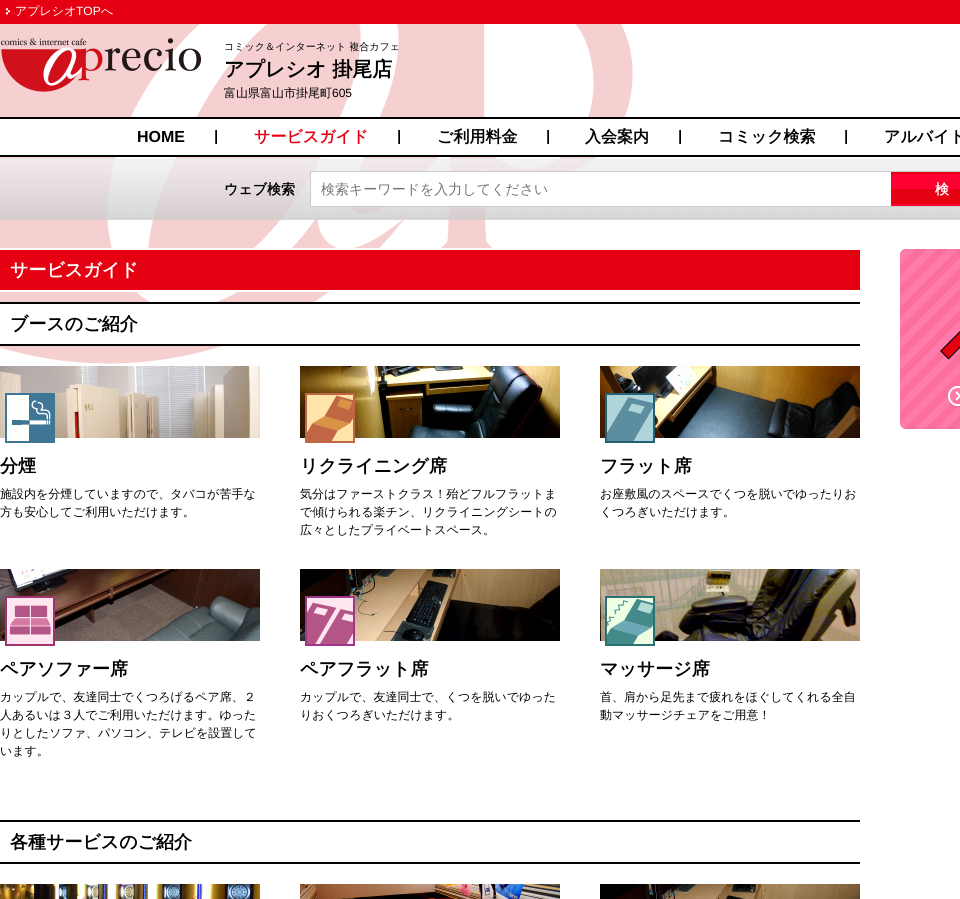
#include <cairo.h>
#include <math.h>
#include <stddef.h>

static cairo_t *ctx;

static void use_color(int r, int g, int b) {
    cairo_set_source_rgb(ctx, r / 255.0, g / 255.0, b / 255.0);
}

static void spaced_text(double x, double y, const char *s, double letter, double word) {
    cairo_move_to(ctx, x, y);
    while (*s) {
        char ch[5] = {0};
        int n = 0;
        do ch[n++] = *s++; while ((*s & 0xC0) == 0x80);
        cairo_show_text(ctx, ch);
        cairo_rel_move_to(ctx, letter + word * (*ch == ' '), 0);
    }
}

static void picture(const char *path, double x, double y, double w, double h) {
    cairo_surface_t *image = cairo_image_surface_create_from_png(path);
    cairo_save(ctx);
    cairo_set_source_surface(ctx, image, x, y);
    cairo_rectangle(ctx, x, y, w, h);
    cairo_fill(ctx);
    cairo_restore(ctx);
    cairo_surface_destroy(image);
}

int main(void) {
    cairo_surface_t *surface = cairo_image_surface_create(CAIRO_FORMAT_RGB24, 960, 899);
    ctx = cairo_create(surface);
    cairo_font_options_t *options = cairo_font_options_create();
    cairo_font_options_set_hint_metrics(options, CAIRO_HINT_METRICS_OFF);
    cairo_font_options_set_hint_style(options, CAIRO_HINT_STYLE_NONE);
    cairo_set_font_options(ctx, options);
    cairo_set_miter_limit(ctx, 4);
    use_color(255, 255, 255);
    cairo_paint(ctx);
    picture("img1.png", 0, 0, 960, 364);
    picture("img2.png", 5, 8, 10, 7);
    cairo_select_font_face(ctx, "WenQuanYi Zen Hei Medium", CAIRO_FONT_SLANT_NORMAL, CAIRO_FONT_WEIGHT_NORMAL);
    cairo_set_font_size(ctx, 12);
    use_color(255, 255, 255);
    cairo_move_to(ctx, 15, 15);
    cairo_show_text(ctx, "アプレシオ");
    cairo_select_font_face(ctx, "Liberation Sans", CAIRO_FONT_SLANT_NORMAL, CAIRO_FONT_WEIGHT_NORMAL);
    cairo_move_to(ctx, 76, 15);
    cairo_show_text(ctx, "TOP");
    cairo_select_font_face(ctx, "WenQuanYi Zen Hei Medium", CAIRO_FONT_SLANT_NORMAL, CAIRO_FONT_WEIGHT_NORMAL);
    cairo_move_to(ctx, 101, 15);
    cairo_show_text(ctx, "へ");
    picture("img3.png", 1, 38, 200, 54);
    cairo_set_font_size(ctx, 10);
    use_color(0, 0, 0);
    cairo_move_to(ctx, 224, 50);
    cairo_show_text(ctx, "コミック＆インターネット 複合カフェ");
    cairo_select_font_face(ctx, "WenQuanYi Zen Hei", CAIRO_FONT_SLANT_NORMAL, CAIRO_FONT_WEIGHT_BOLD);
    cairo_set_font_size(ctx, 20);
    cairo_move_to(ctx, 224, 76);
    cairo_show_text(ctx, "アプレシオ 掛尾店");
    cairo_select_font_face(ctx, "WenQuanYi Zen Hei Medium", CAIRO_FONT_SLANT_NORMAL, CAIRO_FONT_WEIGHT_NORMAL);
    cairo_set_font_size(ctx, 12);
    cairo_move_to(ctx, 224, 97);
    cairo_show_text(ctx, "富山県富山市掛尾町");
    cairo_select_font_face(ctx, "Liberation Sans", CAIRO_FONT_SLANT_NORMAL, CAIRO_FONT_WEIGHT_NORMAL);
    cairo_move_to(ctx, 332, 97);
    cairo_show_text(ctx, "605");
    use_color(255, 255, 255);
    cairo_rectangle(ctx, 0, 119, 624, 36);
    cairo_fill(ctx);
    use_color(0, 0, 0);
    cairo_rectangle(ctx, 0, 117, 960, 2);
    cairo_fill(ctx);
    cairo_rectangle(ctx, 0, 155, 960, 2);
    cairo_fill(ctx);
    picture("img4.png", 215, 130, 2, 14);
    cairo_select_font_face(ctx, "Liberation Sans", CAIRO_FONT_SLANT_NORMAL, CAIRO_FONT_WEIGHT_BOLD);
    cairo_set_font_size(ctx, 16);
    cairo_move_to(ctx, 137, 142);
    cairo_show_text(ctx, "HOME");
    picture("img4.png", 398, 130, 2, 14);
    cairo_select_font_face(ctx, "WenQuanYi Zen Hei", CAIRO_FONT_SLANT_NORMAL, CAIRO_FONT_WEIGHT_BOLD);
    use_color(229, 0, 18);
    cairo_move_to(ctx, 254, 142);
    cairo_show_text(ctx, "サービスガイド");
    picture("img4.png", 547, 130, 2, 14);
    use_color(0, 0, 0);
    cairo_move_to(ctx, 437, 142);
    cairo_show_text(ctx, "ご利用料金");
    picture("img4.png", 679, 130, 2, 14);
    cairo_move_to(ctx, 585, 142);
    cairo_show_text(ctx, "入会案内");
    picture("img4.png", 845, 130, 2, 14);
    cairo_move_to(ctx, 718, 142);
    cairo_show_text(ctx, "コミック検索");
    cairo_move_to(ctx, 884, 142);
    cairo_show_text(ctx, "アルバイト");
    picture("img5.png", 0, 158, 960, 62);
    cairo_set_font_size(ctx, 14);
    cairo_move_to(ctx, 224, 194);
    cairo_show_text(ctx, "ウェブ検索");
    picture("img6.png", 891, 172, 69, 34);
    cairo_rectangle(ctx, 310.5, 171.5, 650, 35);
    use_color(204, 204, 204);
    cairo_set_line_width(ctx, 1);
    cairo_stroke(ctx);
    use_color(255, 255, 255);
    cairo_rectangle(ctx, 311, 172, 580, 34);
    cairo_fill(ctx);
    cairo_select_font_face(ctx, "WenQuanYi Zen Hei Medium", CAIRO_FONT_SLANT_NORMAL, CAIRO_FONT_WEIGHT_NORMAL);
    use_color(117, 117, 117);
    cairo_move_to(ctx, 321, 194);
    cairo_show_text(ctx, "検索キーワードを入力してください");
    cairo_select_font_face(ctx, "WenQuanYi Zen Hei", CAIRO_FONT_SLANT_NORMAL, CAIRO_FONT_WEIGHT_BOLD);
    use_color(255, 255, 255);
    spaced_text(935, 194, "検", 7, 0);
    use_color(229, 0, 18);
    cairo_rectangle(ctx, 0, 250, 860, 40);
    cairo_fill(ctx);
    use_color(255, 255, 255);
    cairo_rectangle(ctx, 0, 248, 495, 2);
    cairo_fill(ctx);
    cairo_rectangle(ctx, 0, 290, 332, 2);
    cairo_fill(ctx);
    cairo_set_font_size(ctx, 18);
    cairo_move_to(ctx, 10, 276);
    cairo_show_text(ctx, "サービスガイド");
    cairo_rectangle(ctx, 0, 304, 311, 40);
    cairo_fill(ctx);
    use_color(0, 0, 0);
    cairo_rectangle(ctx, 0, 302, 860, 2);
    cairo_fill(ctx);
    cairo_rectangle(ctx, 0, 344, 860, 2);
    cairo_fill(ctx);
    cairo_move_to(ctx, 10, 330);
    cairo_show_text(ctx, "ブースのご紹介");
    picture("img7.png", 0, 366, 260, 72);
    picture("img8.png", 5, 393, 50, 50);
    cairo_move_to(ctx, 0, 472);
    cairo_show_text(ctx, "分煙");
    cairo_select_font_face(ctx, "WenQuanYi Zen Hei Medium", CAIRO_FONT_SLANT_NORMAL, CAIRO_FONT_WEIGHT_NORMAL);
    cairo_set_font_size(ctx, 12);
    cairo_move_to(ctx, 0, 498);
    cairo_show_text(ctx, "施設内を分煙していますので、タバコが苦手な");
    cairo_move_to(ctx, 0, 516);
    cairo_show_text(ctx, "方も安心してご利用いただけます。");
    picture("img9.png", 300, 366, 260, 72);
    picture("img10.png", 305, 393, 50, 50);
    cairo_select_font_face(ctx, "WenQuanYi Zen Hei", CAIRO_FONT_SLANT_NORMAL, CAIRO_FONT_WEIGHT_BOLD);
    cairo_set_font_size(ctx, 18);
    cairo_move_to(ctx, 300, 472);
    cairo_show_text(ctx, "リクライニング席");
    cairo_select_font_face(ctx, "WenQuanYi Zen Hei Medium", CAIRO_FONT_SLANT_NORMAL, CAIRO_FONT_WEIGHT_NORMAL);
    cairo_set_font_size(ctx, 12);
    cairo_move_to(ctx, 300, 498);
    cairo_show_text(ctx, "気分はファーストクラス！殆どフルフラットま");
    cairo_move_to(ctx, 300, 516);
    cairo_show_text(ctx, "で傾けられる楽チン、リクライニングシートの");
    cairo_move_to(ctx, 300, 534);
    cairo_show_text(ctx, "広々としたプライベートスペース。");
    picture("img11.png", 600, 366, 260, 72);
    picture("img12.png", 605, 393, 50, 50);
    cairo_select_font_face(ctx, "WenQuanYi Zen Hei", CAIRO_FONT_SLANT_NORMAL, CAIRO_FONT_WEIGHT_BOLD);
    cairo_set_font_size(ctx, 18);
    cairo_move_to(ctx, 600, 472);
    cairo_show_text(ctx, "フラット席");
    cairo_select_font_face(ctx, "WenQuanYi Zen Hei Medium", CAIRO_FONT_SLANT_NORMAL, CAIRO_FONT_WEIGHT_NORMAL);
    cairo_set_font_size(ctx, 12);
    cairo_move_to(ctx, 600, 498);
    cairo_show_text(ctx, "お座敷風のスペースでくつを脱いでゆったりお");
    cairo_move_to(ctx, 600, 516);
    cairo_show_text(ctx, "くつろぎいただけます。");
    picture("img13.png", 0, 569, 260, 72);
    picture("img14.png", 5, 596, 50, 50);
    cairo_select_font_face(ctx, "WenQuanYi Zen Hei", CAIRO_FONT_SLANT_NORMAL, CAIRO_FONT_WEIGHT_BOLD);
    cairo_set_font_size(ctx, 18);
    cairo_move_to(ctx, 0, 675);
    cairo_show_text(ctx, "ペアソファー席");
    cairo_select_font_face(ctx, "WenQuanYi Zen Hei Medium", CAIRO_FONT_SLANT_NORMAL, CAIRO_FONT_WEIGHT_NORMAL);
    cairo_set_font_size(ctx, 12);
    cairo_move_to(ctx, 0, 701);
    cairo_show_text(ctx, "カップルで、友達同士でくつろげるペア席、２");
    cairo_move_to(ctx, 0, 719);
    cairo_show_text(ctx, "人あるいは３人でご利用いただけます。ゆった");
    cairo_move_to(ctx, 0, 737);
    cairo_show_text(ctx, "りとしたソファ、パソコン、テレビを設置して");
    cairo_move_to(ctx, 0, 755);
    cairo_show_text(ctx, "います。");
    picture("img15.png", 300, 569, 260, 72);
    picture("img16.png", 305, 596, 50, 50);
    cairo_select_font_face(ctx, "WenQuanYi Zen Hei", CAIRO_FONT_SLANT_NORMAL, CAIRO_FONT_WEIGHT_BOLD);
    cairo_set_font_size(ctx, 18);
    cairo_move_to(ctx, 300, 675);
    cairo_show_text(ctx, "ペアフラット席");
    cairo_select_font_face(ctx, "WenQuanYi Zen Hei Medium", CAIRO_FONT_SLANT_NORMAL, CAIRO_FONT_WEIGHT_NORMAL);
    cairo_set_font_size(ctx, 12);
    cairo_move_to(ctx, 300, 701);
    cairo_show_text(ctx, "カップルで、友達同士で、くつを脱いでゆった");
    cairo_move_to(ctx, 300, 719);
    cairo_show_text(ctx, "りおくつろぎいただけます。");
    picture("img17.png", 600, 569, 260, 72);
    picture("img18.png", 605, 596, 50, 50);
    cairo_select_font_face(ctx, "WenQuanYi Zen Hei", CAIRO_FONT_SLANT_NORMAL, CAIRO_FONT_WEIGHT_BOLD);
    cairo_set_font_size(ctx, 18);
    cairo_move_to(ctx, 600, 675);
    cairo_show_text(ctx, "マッサージ席");
    cairo_select_font_face(ctx, "WenQuanYi Zen Hei Medium", CAIRO_FONT_SLANT_NORMAL, CAIRO_FONT_WEIGHT_NORMAL);
    cairo_set_font_size(ctx, 12);
    cairo_move_to(ctx, 600, 701);
    cairo_show_text(ctx, "首、肩から足先まで疲れをほぐしてくれる全自");
    cairo_move_to(ctx, 600, 719);
    cairo_show_text(ctx, "動マッサージチェアをご用意！");
    cairo_rectangle(ctx, 0, 820, 860, 2);
    cairo_fill(ctx);
    cairo_rectangle(ctx, 0, 862, 860, 2);
    cairo_fill(ctx);
    cairo_select_font_face(ctx, "WenQuanYi Zen Hei", CAIRO_FONT_SLANT_NORMAL, CAIRO_FONT_WEIGHT_BOLD);
    cairo_set_font_size(ctx, 18);
    cairo_move_to(ctx, 10, 848);
    cairo_show_text(ctx, "各種サービスのご紹介");
    picture("img19.png", 0, 884, 260, 15);
    picture("img20.png", 300, 884, 260, 15);
    picture("img21.png", 600, 884, 260, 15);
    picture("img22.png", 900, 249, 60, 180);
    cairo_surface_write_to_png(surface, "result.png");
    cairo_font_options_destroy(options);
    cairo_destroy(ctx);
    cairo_surface_destroy(surface);
    return 0;
}
